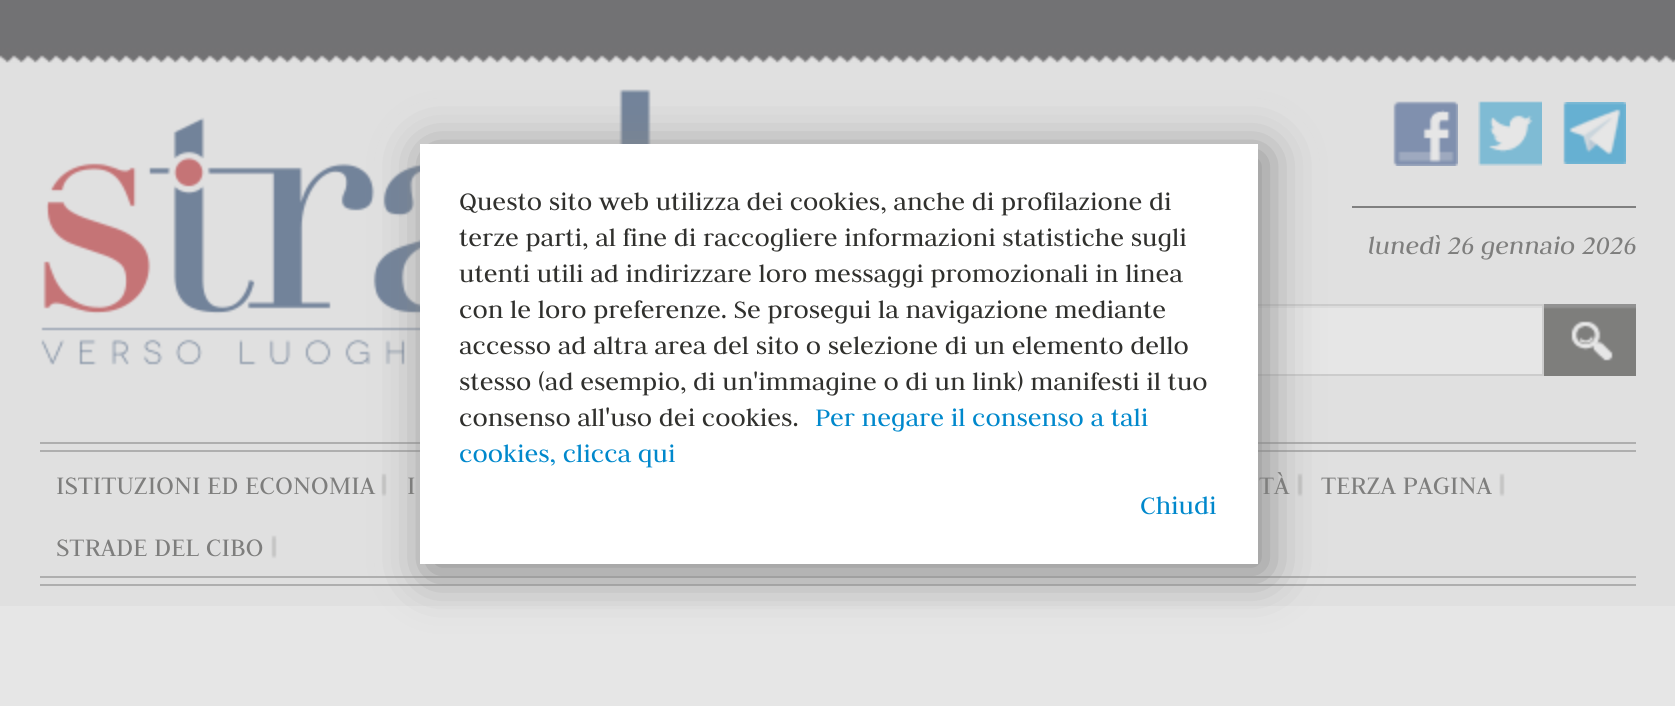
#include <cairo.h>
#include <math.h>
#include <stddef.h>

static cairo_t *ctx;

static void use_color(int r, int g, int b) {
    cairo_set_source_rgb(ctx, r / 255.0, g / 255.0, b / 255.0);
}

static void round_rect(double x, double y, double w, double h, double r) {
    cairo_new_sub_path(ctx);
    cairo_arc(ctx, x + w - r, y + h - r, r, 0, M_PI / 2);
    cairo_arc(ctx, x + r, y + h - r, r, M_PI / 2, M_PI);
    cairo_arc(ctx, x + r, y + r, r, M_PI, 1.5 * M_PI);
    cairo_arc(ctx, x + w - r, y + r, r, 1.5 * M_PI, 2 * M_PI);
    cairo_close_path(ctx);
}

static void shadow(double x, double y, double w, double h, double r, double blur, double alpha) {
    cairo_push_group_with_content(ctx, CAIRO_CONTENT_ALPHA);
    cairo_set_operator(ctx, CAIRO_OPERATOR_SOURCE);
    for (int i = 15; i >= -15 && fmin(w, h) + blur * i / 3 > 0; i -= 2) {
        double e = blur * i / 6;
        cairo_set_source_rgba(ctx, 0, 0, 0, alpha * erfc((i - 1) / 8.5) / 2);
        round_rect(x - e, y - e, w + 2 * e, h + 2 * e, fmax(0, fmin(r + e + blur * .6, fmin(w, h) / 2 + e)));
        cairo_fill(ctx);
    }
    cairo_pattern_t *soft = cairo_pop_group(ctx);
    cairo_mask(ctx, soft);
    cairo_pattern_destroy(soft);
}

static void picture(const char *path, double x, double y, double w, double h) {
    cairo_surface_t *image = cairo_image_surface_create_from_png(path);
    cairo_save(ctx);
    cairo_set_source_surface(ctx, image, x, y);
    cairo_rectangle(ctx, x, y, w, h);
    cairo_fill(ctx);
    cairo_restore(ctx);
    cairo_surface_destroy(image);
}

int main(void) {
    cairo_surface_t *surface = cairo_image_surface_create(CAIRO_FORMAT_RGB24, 1675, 706);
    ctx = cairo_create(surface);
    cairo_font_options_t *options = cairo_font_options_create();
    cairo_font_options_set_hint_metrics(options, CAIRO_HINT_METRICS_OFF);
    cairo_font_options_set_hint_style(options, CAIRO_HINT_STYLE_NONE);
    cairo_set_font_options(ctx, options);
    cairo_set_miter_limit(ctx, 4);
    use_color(224, 224, 224);
    cairo_paint(ctx);
    picture("img1.png", 0, 0, 1675, 63);
    picture("img2.png", 41, 89, 610, 276);
    use_color(230, 230, 230);
    cairo_rectangle(ctx, 1258, 308, 284, 66);
    cairo_fill(ctx);
    use_color(220, 220, 220);
    cairo_rectangle(ctx, 1258, 306, 284, 2);
    cairo_fill(ctx);
    cairo_rectangle(ctx, 1105, 305, 438, 70);
    use_color(204, 204, 204);
    cairo_stroke(ctx);
    use_color(175, 175, 175);
    cairo_rectangle(ctx, 40, 442, 1596, 2);
    cairo_fill(ctx);
    cairo_rectangle(ctx, 40, 584, 1596, 2);
    cairo_fill(ctx);
    cairo_rectangle(ctx, 40, 450, 1596, 2);
    cairo_fill(ctx);
    cairo_rectangle(ctx, 40, 576, 1596, 2);
    cairo_fill(ctx);
    picture("img7.png", 381, 473, 6, 24);
    picture("img7.png", 1297, 473, 6, 24);
    use_color(230, 230, 230);
    cairo_rectangle(ctx, 0, 606, 1675, 100);
    cairo_fill(ctx);
    use_color(136, 136, 136);
    shadow(428, 152, 838, 420, 0, 25, 1);
    use_color(255, 255, 255);
    cairo_rectangle(ctx, 420, 144, 838, 420);
    cairo_fill(ctx);
    cairo_select_font_face(ctx, "Judson Medium", CAIRO_FONT_SLANT_NORMAL, CAIRO_FONT_WEIGHT_NORMAL);
    cairo_set_font_size(ctx, 28);
    use_color(48, 48, 45);
    cairo_move_to(ctx, 459, 210);
    cairo_show_text(ctx, "Questo sito web utilizza dei cookies, anche di profilazione di");
    cairo_move_to(ctx, 459, 246);
    cairo_show_text(ctx, "terze parti, al fine di raccogliere informazioni statistiche sugli");
    cairo_move_to(ctx, 459, 282);
    cairo_show_text(ctx, "utenti utili ad indirizzare loro messaggi promozionali in linea");
    cairo_move_to(ctx, 459, 318);
    cairo_show_text(ctx, "con le loro preferenze. Se prosegui la navigazione mediante");
    cairo_move_to(ctx, 459, 354);
    cairo_show_text(ctx, "accesso ad altra area del sito o selezione di un elemento dello");
    cairo_move_to(ctx, 459, 390);
    cairo_show_text(ctx, "stesso (ad esempio, di un'immagine o di un link) manifesti il tuo");
    cairo_move_to(ctx, 459, 426);
    cairo_show_text(ctx, "consenso all'uso dei cookies.");
    use_color(0, 136, 204);
    cairo_move_to(ctx, 815, 426);
    cairo_show_text(ctx, "Per negare il consenso a tali");
    cairo_move_to(ctx, 459, 462);
    cairo_show_text(ctx, "cookies, clicca qui");
    cairo_move_to(ctx, 1140, 514);
    cairo_show_text(ctx, "Chiudi");
    use_color(128, 128, 128);
    cairo_rectangle(ctx, 1352, 206, 284, 2);
    cairo_fill(ctx);
    picture("img3.png", 1393, 101, 65, 65);
    picture("img4.png", 1478, 101, 64, 65);
    picture("img5.png", 1563, 102, 63, 62);
    cairo_select_font_face(ctx, "Judson Medium", CAIRO_FONT_SLANT_ITALIC, CAIRO_FONT_WEIGHT_NORMAL);
    use_color(126, 126, 125);
    cairo_move_to(ctx, 1368, 254);
    cairo_show_text(ctx, "lunedì 26 gennaio 2026");
    picture("img6.png", 1544, 304, 92, 72);
    cairo_select_font_face(ctx, "Judson Medium", CAIRO_FONT_SLANT_NORMAL, CAIRO_FONT_WEIGHT_NORMAL);
    cairo_move_to(ctx, 56, 494);
    cairo_show_text(ctx, "ISTITUZIONI ED ECONOMIA");
    cairo_move_to(ctx, 407, 494);
    cairo_show_text(ctx, "I");
    cairo_move_to(ctx, 1259, 494);
    cairo_show_text(ctx, "TÀ");
    picture("img7.png", 1499, 473, 6, 24);
    cairo_move_to(ctx, 1321, 494);
    cairo_show_text(ctx, "TERZA PAGINA");
    picture("img7.png", 271, 535, 6, 24);
    cairo_move_to(ctx, 56, 556);
    cairo_show_text(ctx, "STRADE DEL CIBO");
    cairo_surface_write_to_png(surface, "result.png");
    cairo_font_options_destroy(options);
    cairo_destroy(ctx);
    cairo_surface_destroy(surface);
    return 0;
}
